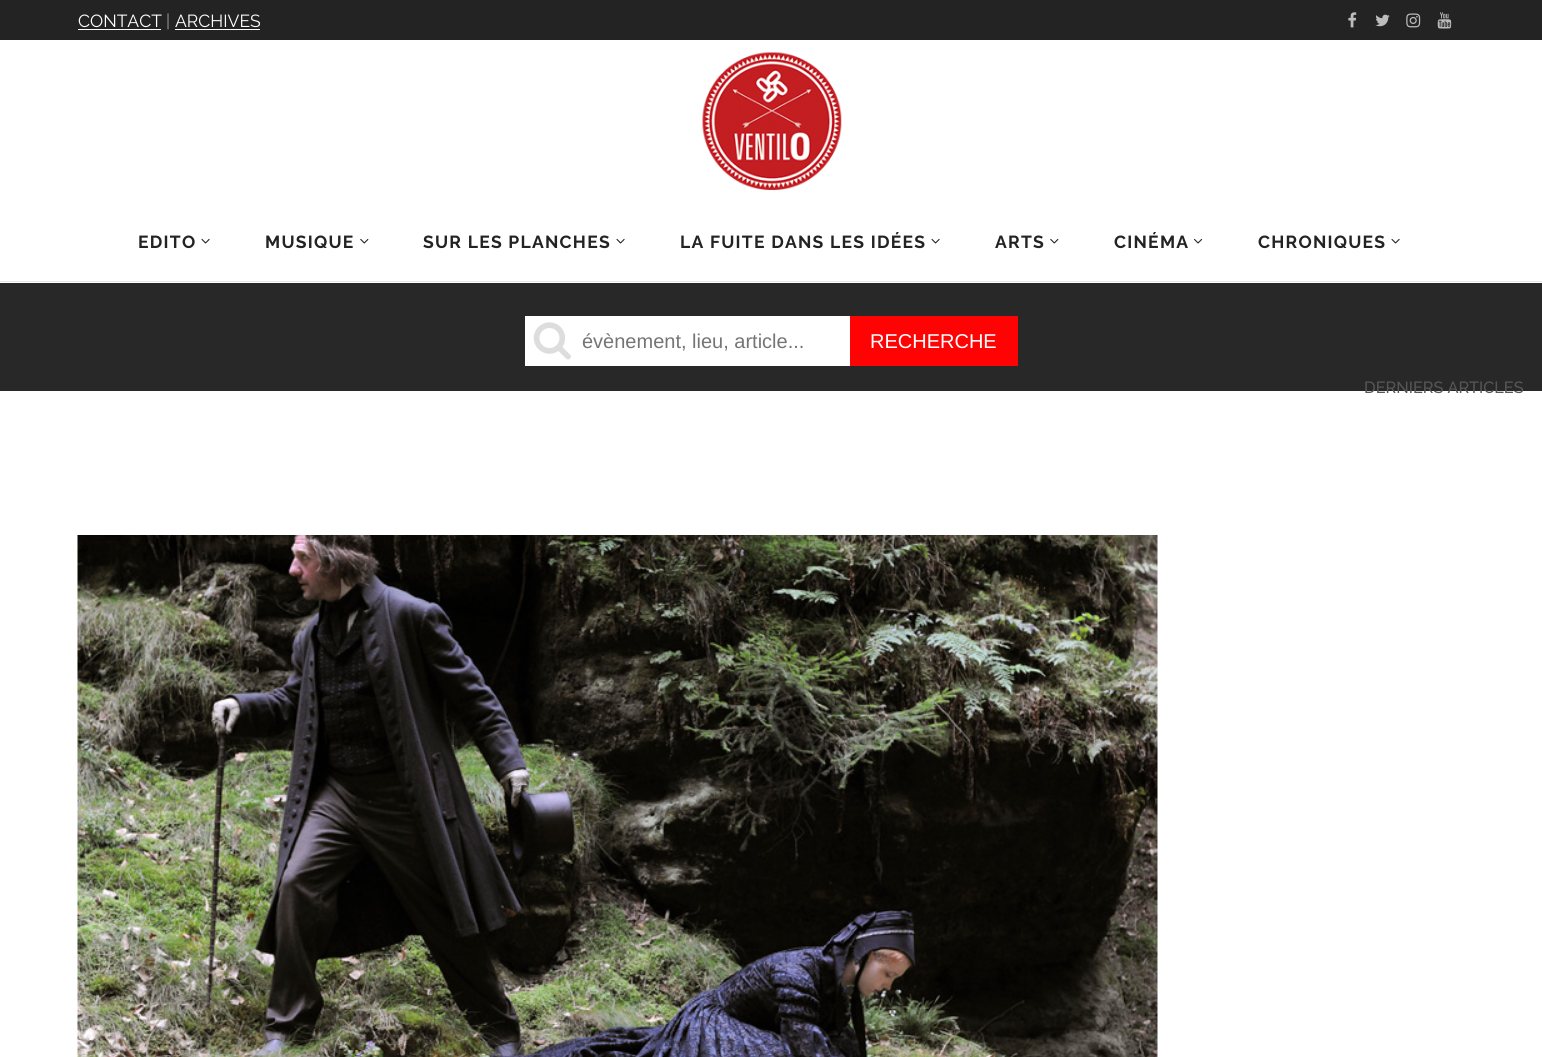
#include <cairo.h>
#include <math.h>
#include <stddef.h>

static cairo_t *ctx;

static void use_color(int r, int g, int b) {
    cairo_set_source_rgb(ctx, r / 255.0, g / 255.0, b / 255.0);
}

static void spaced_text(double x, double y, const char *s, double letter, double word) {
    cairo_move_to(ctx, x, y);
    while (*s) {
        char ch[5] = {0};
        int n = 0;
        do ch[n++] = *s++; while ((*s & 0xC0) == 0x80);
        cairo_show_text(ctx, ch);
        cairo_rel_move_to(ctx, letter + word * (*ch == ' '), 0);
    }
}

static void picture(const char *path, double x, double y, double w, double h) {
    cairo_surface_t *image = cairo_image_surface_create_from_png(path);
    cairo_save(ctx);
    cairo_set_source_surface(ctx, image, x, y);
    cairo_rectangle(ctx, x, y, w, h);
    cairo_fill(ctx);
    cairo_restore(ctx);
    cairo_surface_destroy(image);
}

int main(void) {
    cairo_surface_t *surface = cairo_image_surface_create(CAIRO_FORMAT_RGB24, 1542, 1057);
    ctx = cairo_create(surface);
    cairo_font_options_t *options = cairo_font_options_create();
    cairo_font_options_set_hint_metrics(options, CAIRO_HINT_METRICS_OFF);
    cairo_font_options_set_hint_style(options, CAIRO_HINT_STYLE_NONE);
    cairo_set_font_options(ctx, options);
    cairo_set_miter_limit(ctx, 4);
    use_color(255, 255, 255);
    cairo_paint(ctx);
    use_color(35, 35, 35);
    cairo_rectangle(ctx, 0, 0, 1542, 40);
    cairo_fill(ctx);
    cairo_select_font_face(ctx, "Raleway", CAIRO_FONT_SLANT_NORMAL, CAIRO_FONT_WEIGHT_NORMAL);
    cairo_set_font_size(ctx, 17.5);
    use_color(255, 255, 255);
    cairo_move_to(ctx, 78, 27);
    cairo_show_text(ctx, "CONTACT");
    cairo_rectangle(ctx, 78, 29, 83, 1);
    cairo_fill(ctx);
    use_color(153, 153, 153);
    cairo_move_to(ctx, 166, 27);
    cairo_show_text(ctx, "|");
    use_color(255, 255, 255);
    cairo_move_to(ctx, 175, 27);
    cairo_show_text(ctx, "ARCHIVES");
    cairo_rectangle(ctx, 175, 29, 85, 1);
    cairo_fill(ctx);
    picture("img1.png", 1348, 12, 9, 16);
    picture("img2.png", 1375, 14, 15, 13);
    picture("img3.png", 1406, 13, 15, 15);
    picture("img4.png", 1437, 12, 15, 17);
    use_color(229, 229, 229);
    cairo_rectangle(ctx, 0, 281, 1542, 1);
    cairo_fill(ctx);
    picture("img5.png", 702, 52, 140, 138);
    cairo_select_font_face(ctx, "Raleway", CAIRO_FONT_SLANT_NORMAL, CAIRO_FONT_WEIGHT_BOLD);
    use_color(35, 35, 35);
    spaced_text(138, 248, "EDITO", 1.25, 0);
    picture("img6.png", 201, 238, 9, 6);
    spaced_text(265, 248, "MUSIQUE", 1.25, 0);
    picture("img7.png", 360, 238, 9, 6);
    spaced_text(423, 248, "SUR LES PLANCHES", 1.25, 0);
    picture("img6.png", 616, 238, 9, 6);
    spaced_text(680, 248, "LA FUITE DANS LES IDÉES", 1.25, 0);
    picture("img6.png", 931, 238, 9, 6);
    spaced_text(995, 248, "ARTS", 1.25, 0);
    picture("img7.png", 1050, 238, 9, 6);
    spaced_text(1114, 248, "CINÉMA", 1.25, 0);
    picture("img8.png", 1194, 238, 9, 6);
    spaced_text(1258, 248, "CHRONIQUES", 1.25, 0);
    picture("img6.png", 1391, 238, 9, 6);
    use_color(40, 40, 40);
    cairo_rectangle(ctx, 0, 283, 1542, 108);
    cairo_fill(ctx);
    cairo_select_font_face(ctx, "Raleway Medium", CAIRO_FONT_SLANT_NORMAL, CAIRO_FONT_WEIGHT_NORMAL);
    cairo_set_font_size(ctx, 16.25);
    use_color(86, 86, 86);
    cairo_move_to(ctx, 1364, 393);
    cairo_show_text(ctx, "DERNIERS ARTICLES");
    use_color(255, 255, 255);
    cairo_rectangle(ctx, 525, 316, 325, 50);
    cairo_fill(ctx);
    picture("img9.png", 533, 322, 38, 38);
    cairo_select_font_face(ctx, "Liberation Sans", CAIRO_FONT_SLANT_NORMAL, CAIRO_FONT_WEIGHT_NORMAL);
    cairo_set_font_size(ctx, 20);
    use_color(117, 117, 117);
    cairo_move_to(ctx, 582, 348);
    cairo_show_text(ctx, "évènement, lieu, article...");
    use_color(255, 2, 4);
    cairo_rectangle(ctx, 850, 316, 168, 50);
    cairo_fill(ctx);
    use_color(255, 255, 255);
    cairo_move_to(ctx, 870, 348);
    cairo_show_text(ctx, "RECHERCHE");
    picture("img10.png", 77, 535, 1081, 522);
    cairo_surface_write_to_png(surface, "result.png");
    cairo_font_options_destroy(options);
    cairo_destroy(ctx);
    cairo_surface_destroy(surface);
    return 0;
}
